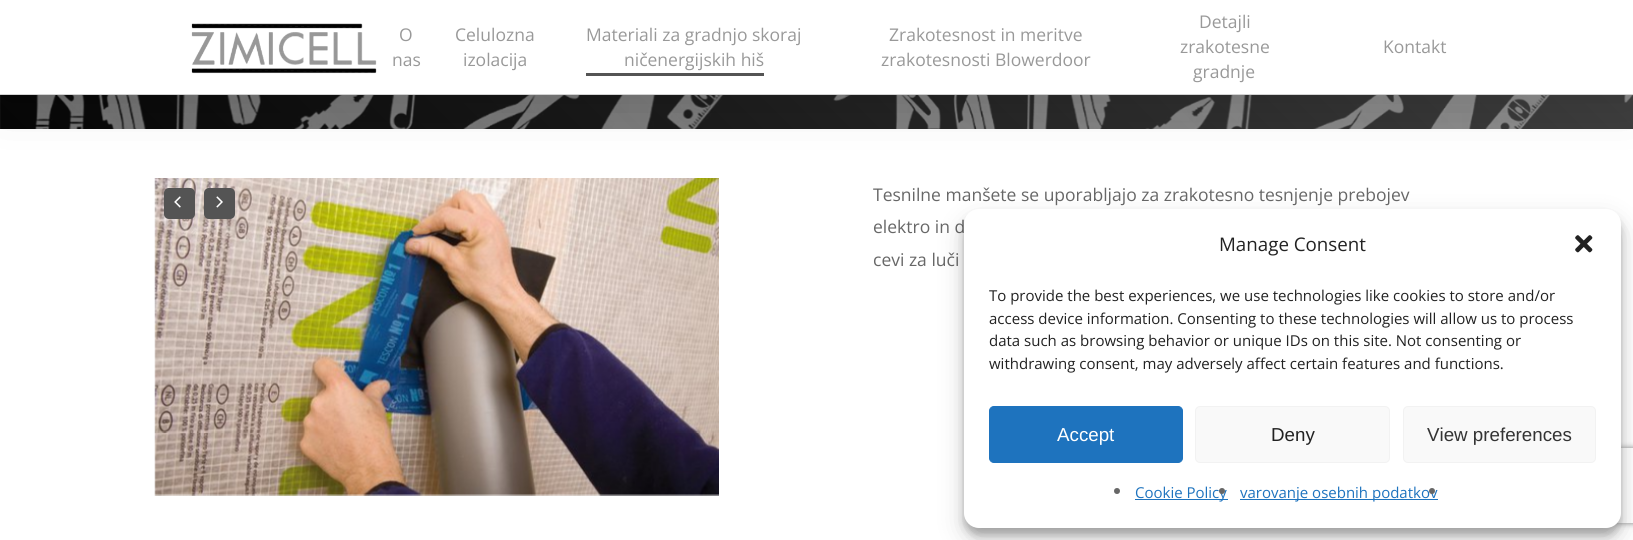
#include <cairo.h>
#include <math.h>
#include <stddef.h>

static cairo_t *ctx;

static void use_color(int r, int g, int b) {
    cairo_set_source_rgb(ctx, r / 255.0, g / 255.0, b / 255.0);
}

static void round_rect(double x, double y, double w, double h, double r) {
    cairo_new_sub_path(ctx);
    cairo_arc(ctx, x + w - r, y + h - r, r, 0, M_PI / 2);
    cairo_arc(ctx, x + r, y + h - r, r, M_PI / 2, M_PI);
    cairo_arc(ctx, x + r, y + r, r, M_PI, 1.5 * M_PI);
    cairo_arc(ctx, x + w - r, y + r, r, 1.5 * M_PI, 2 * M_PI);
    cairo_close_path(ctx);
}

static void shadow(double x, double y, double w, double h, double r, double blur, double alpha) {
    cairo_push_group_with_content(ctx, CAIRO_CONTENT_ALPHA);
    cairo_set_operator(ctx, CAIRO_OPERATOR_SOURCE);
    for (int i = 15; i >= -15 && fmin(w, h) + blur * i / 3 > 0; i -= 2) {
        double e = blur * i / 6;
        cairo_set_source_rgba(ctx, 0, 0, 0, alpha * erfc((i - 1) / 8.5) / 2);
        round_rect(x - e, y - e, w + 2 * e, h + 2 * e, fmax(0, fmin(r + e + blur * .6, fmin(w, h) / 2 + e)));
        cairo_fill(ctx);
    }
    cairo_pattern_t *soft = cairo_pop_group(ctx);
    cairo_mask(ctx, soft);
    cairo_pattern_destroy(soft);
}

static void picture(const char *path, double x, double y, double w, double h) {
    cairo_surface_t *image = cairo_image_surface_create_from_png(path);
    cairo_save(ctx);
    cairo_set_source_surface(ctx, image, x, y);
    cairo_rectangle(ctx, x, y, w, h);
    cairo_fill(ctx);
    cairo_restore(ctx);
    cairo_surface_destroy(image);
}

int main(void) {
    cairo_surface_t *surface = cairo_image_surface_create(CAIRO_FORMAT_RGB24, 1633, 540);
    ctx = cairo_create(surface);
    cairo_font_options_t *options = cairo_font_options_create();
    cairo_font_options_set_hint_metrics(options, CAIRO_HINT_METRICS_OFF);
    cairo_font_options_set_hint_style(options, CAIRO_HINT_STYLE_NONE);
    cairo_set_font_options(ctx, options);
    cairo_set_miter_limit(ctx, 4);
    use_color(255, 255, 255);
    cairo_paint(ctx);
    picture("img2.png", 0, 95, 1633, 34);
    picture("img3.png", 154, 178, 565, 318);
    use_color(0, 0, 0);
    shadow(0, 4, 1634, 95, 0, 28, 0.15);
    use_color(255, 255, 255);
    cairo_rectangle(ctx, 0, 0, 1633, 94);
    cairo_fill(ctx);
    use_color(211, 211, 211);
    cairo_rectangle(ctx, 0, 94, 1633, 1);
    cairo_fill(ctx);
    picture("img1.png", 191, 23, 186, 51);
    cairo_select_font_face(ctx, "Open Sans", CAIRO_FONT_SLANT_NORMAL, CAIRO_FONT_WEIGHT_NORMAL);
    cairo_set_font_size(ctx, 17.5);
    use_color(153, 153, 153);
    cairo_move_to(ctx, 399, 41);
    cairo_show_text(ctx, "O");
    cairo_move_to(ctx, 392, 66);
    cairo_show_text(ctx, "nas");
    cairo_move_to(ctx, 455, 41);
    cairo_show_text(ctx, "Celulozna");
    cairo_move_to(ctx, 463, 66);
    cairo_show_text(ctx, "izolacija");
    cairo_move_to(ctx, 586, 41);
    cairo_show_text(ctx, "Materiali za gradnjo skoraj");
    cairo_move_to(ctx, 624, 66);
    cairo_show_text(ctx, "ničenergijskih hiš");
    use_color(84, 84, 84);
    cairo_rectangle(ctx, 586, 73, 178, 3);
    cairo_fill(ctx);
    use_color(153, 153, 153);
    cairo_move_to(ctx, 889, 41);
    cairo_show_text(ctx, "Zrakotesnost in meritve");
    cairo_move_to(ctx, 881, 66);
    cairo_show_text(ctx, "zrakotesnosti Blowerdoor");
    cairo_move_to(ctx, 1199, 28);
    cairo_show_text(ctx, "Detajli");
    cairo_move_to(ctx, 1180, 53);
    cairo_show_text(ctx, "zrakotesne");
    cairo_move_to(ctx, 1193, 78);
    cairo_show_text(ctx, "gradnje");
    cairo_move_to(ctx, 1383, 53);
    cairo_show_text(ctx, "Kontakt");
    use_color(84, 84, 84);
    round_rect(164, 188, 31, 31, 5);
    cairo_fill(ctx);
    picture("img4.png", 174, 196, 7, 12);
    round_rect(204, 188, 31, 31, 5);
    cairo_fill(ctx);
    picture("img5.png", 216, 196, 7, 12);
    use_color(103, 103, 103);
    cairo_move_to(ctx, 873, 201);
    cairo_show_text(ctx, "Tesnilne manšete se uporabljajo za zrakotesno tesnjenje prebojev");
    cairo_move_to(ctx, 873, 233);
    cairo_show_text(ctx, "elektro in d");
    cairo_move_to(ctx, 873, 266);
    cairo_show_text(ctx, "cevi za luči");
    use_color(0, 0, 0);
    shadow(964, 216, 657, 319, 15, 4, 0.23);
    shadow(964, 221, 657, 319, 15, 12.5, 0.19);
    cairo_save(ctx);
    cairo_set_fill_rule(ctx, CAIRO_FILL_RULE_EVEN_ODD);
    cairo_new_path(ctx);
    cairo_move_to(ctx, 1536, 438);
    cairo_line_to(ctx, 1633, 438);
    cairo_line_to(ctx, 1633, 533);
    cairo_line_to(ctx, 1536, 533);
    cairo_close_path(ctx);
    cairo_move_to(ctx, 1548.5, 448);
    cairo_line_to(ctx, 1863.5, 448);
    cairo_curve_to(ctx, 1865, 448, 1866, 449, 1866, 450.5);
    cairo_line_to(ctx, 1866, 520.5);
    cairo_curve_to(ctx, 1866, 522, 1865, 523, 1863.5, 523);
    cairo_line_to(ctx, 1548.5, 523);
    cairo_curve_to(ctx, 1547, 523, 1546, 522, 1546, 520.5);
    cairo_line_to(ctx, 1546, 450.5);
    cairo_curve_to(ctx, 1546, 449, 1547, 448, 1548.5, 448);
    cairo_close_path(ctx);
    cairo_clip(ctx);
    use_color(128, 128, 128);
    shadow(1546, 448, 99, 75, 2.5, 3, 1);
    cairo_restore(ctx);
    use_color(255, 255, 255);
    round_rect(964, 209, 657, 319, 15);
    cairo_fill(ctx);
    cairo_set_font_size(ctx, 18.75);
    use_color(34, 34, 34);
    cairo_move_to(ctx, 1219, 251);
    cairo_show_text(ctx, "Manage Consent");
    picture("img6.png", 1575, 235, 18, 18);
    cairo_set_font_size(ctx, 15);
    cairo_move_to(ctx, 989, 301);
    cairo_show_text(ctx, "To provide the best experiences, we use technologies like cookies to store and/or");
    cairo_move_to(ctx, 989, 324);
    cairo_show_text(ctx, "access device information. Consenting to these technologies will allow us to process");
    cairo_move_to(ctx, 989, 346);
    cairo_show_text(ctx, "data such as browsing behavior or unique IDs on this site. Not consenting or");
    cairo_move_to(ctx, 989, 369);
    cairo_show_text(ctx, "withdrawing consent, may adversely affect certain features and functions.");
    use_color(30, 115, 190);
    round_rect(989.5, 406.5, 193, 56, 4.5);
    cairo_fill_preserve(ctx);
    cairo_set_line_width(ctx, 1);
    cairo_stroke(ctx);
    cairo_select_font_face(ctx, "Liberation Sans", CAIRO_FONT_SLANT_NORMAL, CAIRO_FONT_WEIGHT_NORMAL);
    cairo_set_font_size(ctx, 18.75);
    use_color(255, 255, 255);
    cairo_move_to(ctx, 1057, 441);
    cairo_show_text(ctx, "Accept");
    use_color(249, 249, 249);
    round_rect(1195.5, 406.5, 194, 56, 4.5);
    cairo_fill_preserve(ctx);
    use_color(242, 242, 242);
    cairo_stroke(ctx);
    use_color(34, 34, 34);
    cairo_move_to(ctx, 1271, 441);
    cairo_show_text(ctx, "Deny");
    use_color(249, 249, 249);
    round_rect(1403.5, 406.5, 192, 56, 4.5);
    cairo_fill_preserve(ctx);
    use_color(242, 242, 242);
    cairo_stroke(ctx);
    use_color(51, 51, 51);
    cairo_move_to(ctx, 1427, 441);
    cairo_show_text(ctx, "View preferences");
    use_color(103, 103, 103);
    cairo_new_path(ctx);
    cairo_arc(ctx, 1117, 491, 3, 0, 2 * M_PI);
    cairo_fill(ctx);
    use_color(30, 115, 190);
    cairo_rectangle(ctx, 1135, 499, 93, 1);
    cairo_fill(ctx);
    cairo_select_font_face(ctx, "Open Sans", CAIRO_FONT_SLANT_NORMAL, CAIRO_FONT_WEIGHT_NORMAL);
    cairo_set_font_size(ctx, 15);
    cairo_move_to(ctx, 1135, 498);
    cairo_show_text(ctx, "Cookie Policy");
    use_color(103, 103, 103);
    cairo_new_path(ctx);
    cairo_arc(ctx, 1222, 491, 3, 0, 2 * M_PI);
    cairo_fill(ctx);
    use_color(30, 115, 190);
    cairo_rectangle(ctx, 1240, 499, 198, 1);
    cairo_fill(ctx);
    cairo_move_to(ctx, 1240, 498);
    cairo_show_text(ctx, "varovanje osebnih podatkov");
    use_color(103, 103, 103);
    cairo_new_path(ctx);
    cairo_arc(ctx, 1432, 491, 3, 0, 2 * M_PI);
    cairo_fill(ctx);
    cairo_surface_write_to_png(surface, "result.png");
    cairo_font_options_destroy(options);
    cairo_destroy(ctx);
    cairo_surface_destroy(surface);
    return 0;
}
